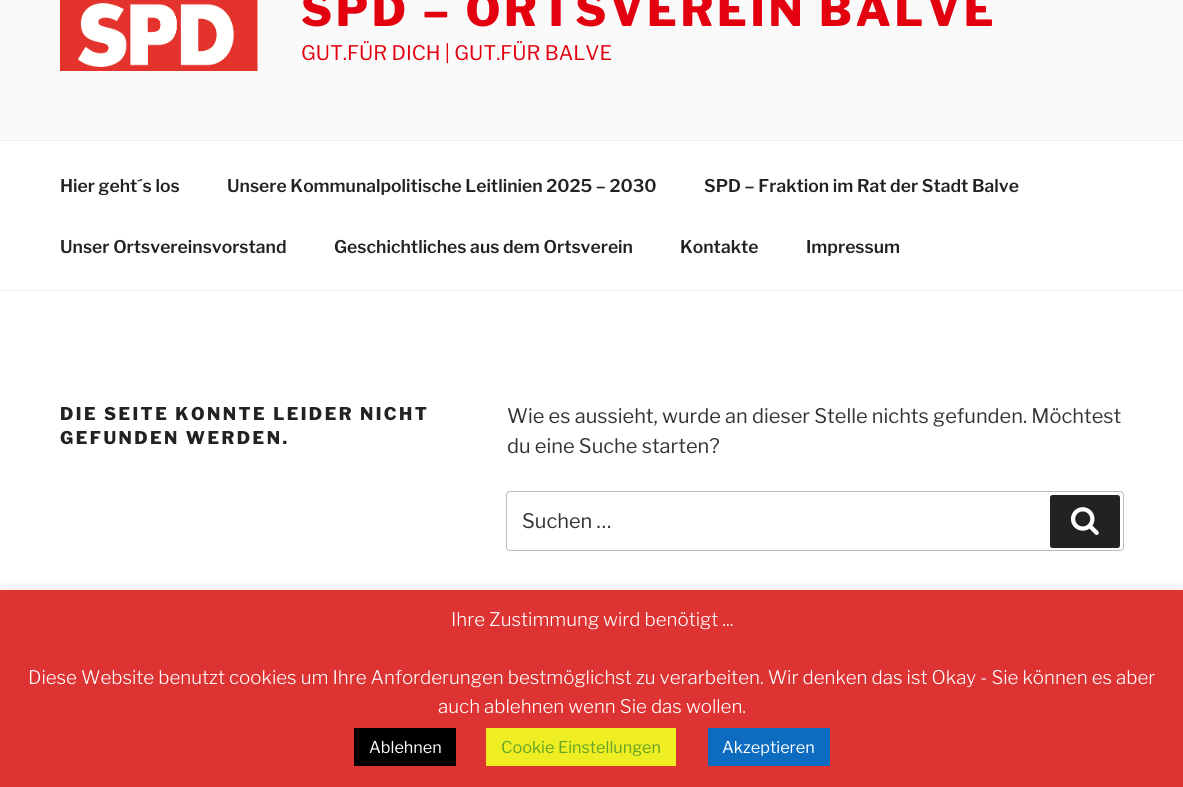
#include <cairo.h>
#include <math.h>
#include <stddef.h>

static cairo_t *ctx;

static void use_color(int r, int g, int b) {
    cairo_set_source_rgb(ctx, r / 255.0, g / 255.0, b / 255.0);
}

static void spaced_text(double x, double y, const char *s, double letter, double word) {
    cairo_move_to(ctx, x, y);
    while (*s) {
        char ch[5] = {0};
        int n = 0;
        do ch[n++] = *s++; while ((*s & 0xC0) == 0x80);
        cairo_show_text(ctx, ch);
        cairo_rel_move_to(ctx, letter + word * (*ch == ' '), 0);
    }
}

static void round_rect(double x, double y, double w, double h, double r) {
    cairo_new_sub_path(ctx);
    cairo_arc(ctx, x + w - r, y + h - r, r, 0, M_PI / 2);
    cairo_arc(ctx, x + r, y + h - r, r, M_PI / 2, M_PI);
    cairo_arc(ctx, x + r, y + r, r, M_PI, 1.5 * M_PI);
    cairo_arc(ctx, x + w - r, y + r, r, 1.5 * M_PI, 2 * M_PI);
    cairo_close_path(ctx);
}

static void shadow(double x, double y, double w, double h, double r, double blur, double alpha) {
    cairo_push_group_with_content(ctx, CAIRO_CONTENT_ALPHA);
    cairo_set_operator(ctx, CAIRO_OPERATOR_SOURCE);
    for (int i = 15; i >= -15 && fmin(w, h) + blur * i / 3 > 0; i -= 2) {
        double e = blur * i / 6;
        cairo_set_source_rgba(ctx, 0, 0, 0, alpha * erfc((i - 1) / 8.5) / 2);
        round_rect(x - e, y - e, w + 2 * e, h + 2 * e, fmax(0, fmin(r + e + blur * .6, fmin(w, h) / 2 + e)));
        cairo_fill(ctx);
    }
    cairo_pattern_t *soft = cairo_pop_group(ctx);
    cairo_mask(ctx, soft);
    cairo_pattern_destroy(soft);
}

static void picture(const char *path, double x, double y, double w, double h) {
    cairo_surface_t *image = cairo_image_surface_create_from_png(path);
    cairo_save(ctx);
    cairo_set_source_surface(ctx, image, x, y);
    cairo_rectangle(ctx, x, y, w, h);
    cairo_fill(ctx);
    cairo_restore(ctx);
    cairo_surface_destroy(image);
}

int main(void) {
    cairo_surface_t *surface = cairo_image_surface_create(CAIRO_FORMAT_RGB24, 1183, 787);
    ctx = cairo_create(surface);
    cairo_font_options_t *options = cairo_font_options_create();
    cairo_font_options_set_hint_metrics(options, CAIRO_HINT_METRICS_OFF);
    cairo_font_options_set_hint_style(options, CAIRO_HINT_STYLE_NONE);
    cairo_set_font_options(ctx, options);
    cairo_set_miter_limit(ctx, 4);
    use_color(255, 255, 255);
    cairo_paint(ctx);
    use_color(250, 250, 250);
    cairo_rectangle(ctx, 0, 0, 1183, 140);
    cairo_fill(ctx);
    picture("img1.png", 60, 0, 198, 71);
    cairo_select_font_face(ctx, "Libre Franklin Thin", CAIRO_FONT_SLANT_NORMAL, CAIRO_FONT_WEIGHT_NORMAL);
    cairo_set_font_size(ctx, 45);
    use_color(227, 0, 15);
    spaced_text(301, 26, "SPD – ORTSVEREIN BALVE", 3.6, 0);
    cairo_select_font_face(ctx, "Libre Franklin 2 Thin", CAIRO_FONT_SLANT_NORMAL, CAIRO_FONT_WEIGHT_NORMAL);
    cairo_set_font_size(ctx, 20);
    cairo_move_to(ctx, 301, 60);
    cairo_show_text(ctx, "GUT.FÜR DICH | GUT.FÜR BALVE");
    use_color(238, 238, 238);
    cairo_rectangle(ctx, 0, 140, 1183, 1);
    cairo_fill(ctx);
    cairo_rectangle(ctx, 0, 290, 1183, 1);
    cairo_fill(ctx);
    cairo_select_font_face(ctx, "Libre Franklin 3 Thin", CAIRO_FONT_SLANT_NORMAL, CAIRO_FONT_WEIGHT_NORMAL);
    cairo_set_font_size(ctx, 17.5);
    use_color(34, 34, 34);
    cairo_move_to(ctx, 60, 192);
    cairo_show_text(ctx, "Hier geht´s los");
    cairo_move_to(ctx, 227, 192);
    cairo_show_text(ctx, "Unsere Kommunalpolitische Leitlinien 2025 – 2030");
    cairo_move_to(ctx, 704, 192);
    cairo_show_text(ctx, "SPD – Fraktion im Rat der Stadt Balve");
    cairo_move_to(ctx, 60, 253);
    cairo_show_text(ctx, "Unser Ortsvereinsvorstand");
    cairo_move_to(ctx, 334, 253);
    cairo_show_text(ctx, "Geschichtliches aus dem Ortsverein");
    cairo_move_to(ctx, 680, 253);
    cairo_show_text(ctx, "Kontakte");
    cairo_move_to(ctx, 806, 253);
    cairo_show_text(ctx, "Impressum");
    cairo_select_font_face(ctx, "Libre Franklin Thin", CAIRO_FONT_SLANT_NORMAL, CAIRO_FONT_WEIGHT_NORMAL);
    spaced_text(60, 420, "DIE SEITE KONNTE LEIDER NICHT", 2.45, 0);
    spaced_text(60, 444, "GEFUNDEN WERDEN.", 2.45, 0);
    cairo_select_font_face(ctx, "Libre Franklin 2 Thin", CAIRO_FONT_SLANT_NORMAL, CAIRO_FONT_WEIGHT_NORMAL);
    cairo_set_font_size(ctx, 20);
    use_color(51, 51, 51);
    cairo_move_to(ctx, 507, 423);
    cairo_show_text(ctx, "Wie es aussieht, wurde an dieser Stelle nichts gefunden. Möchtest");
    cairo_move_to(ctx, 507, 453);
    cairo_show_text(ctx, "du eine Suche starten?");
    round_rect(506.5, 491.5, 617, 59, 3.5);
    use_color(187, 187, 187);
    cairo_set_line_width(ctx, 1);
    cairo_stroke(ctx);
    use_color(51, 51, 51);
    cairo_move_to(ctx, 522, 528);
    cairo_show_text(ctx, "Suchen …");
    use_color(34, 34, 34);
    round_rect(1050, 495, 70, 53, 2.5);
    cairo_fill(ctx);
    picture("img2.png", 1070, 507, 29, 28);
    use_color(172, 171, 171);
    shadow(0, 589, 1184, 197, 0, 6, 0.3);
    use_color(221, 51, 51);
    cairo_rectangle(ctx, 0, 590, 1183, 197);
    cairo_fill(ctx);
    cairo_select_font_face(ctx, "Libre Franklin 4 Thin", CAIRO_FONT_SLANT_NORMAL, CAIRO_FONT_WEIGHT_NORMAL);
    cairo_set_font_size(ctx, 18.75);
    use_color(255, 255, 255);
    cairo_move_to(ctx, 451, 626);
    cairo_show_text(ctx, "Ihre Zustimmung wird benötigt ...");
    cairo_move_to(ctx, 28, 684);
    cairo_show_text(ctx, "Diese Website benutzt cookies um Ihre Anforderungen bestmöglichst zu verarbeiten. Wir denken das ist Okay - Sie können es aber");
    cairo_move_to(ctx, 438, 713);
    cairo_show_text(ctx, "auch ablehnen wenn Sie das wollen.");
    use_color(0, 0, 0);
    cairo_rectangle(ctx, 354, 728, 102, 38);
    cairo_fill(ctx);
    cairo_select_font_face(ctx, "Libre Franklin 2 Thin", CAIRO_FONT_SLANT_NORMAL, CAIRO_FONT_WEIGHT_NORMAL);
    cairo_set_font_size(ctx, 16.25);
    use_color(255, 255, 255);
    cairo_move_to(ctx, 369, 753);
    cairo_show_text(ctx, "Ablehnen");
    use_color(238, 238, 34);
    cairo_rectangle(ctx, 486, 728, 190, 38);
    cairo_fill(ctx);
    use_color(98, 163, 41);
    cairo_move_to(ctx, 501, 753);
    cairo_show_text(ctx, "Cookie Einstellungen");
    use_color(13, 108, 191);
    cairo_rectangle(ctx, 708, 728, 122, 38);
    cairo_fill(ctx);
    use_color(255, 255, 255);
    cairo_move_to(ctx, 722, 753);
    cairo_show_text(ctx, "Akzeptieren");
    cairo_surface_write_to_png(surface, "result.png");
    cairo_font_options_destroy(options);
    cairo_destroy(ctx);
    cairo_surface_destroy(surface);
    return 0;
}
